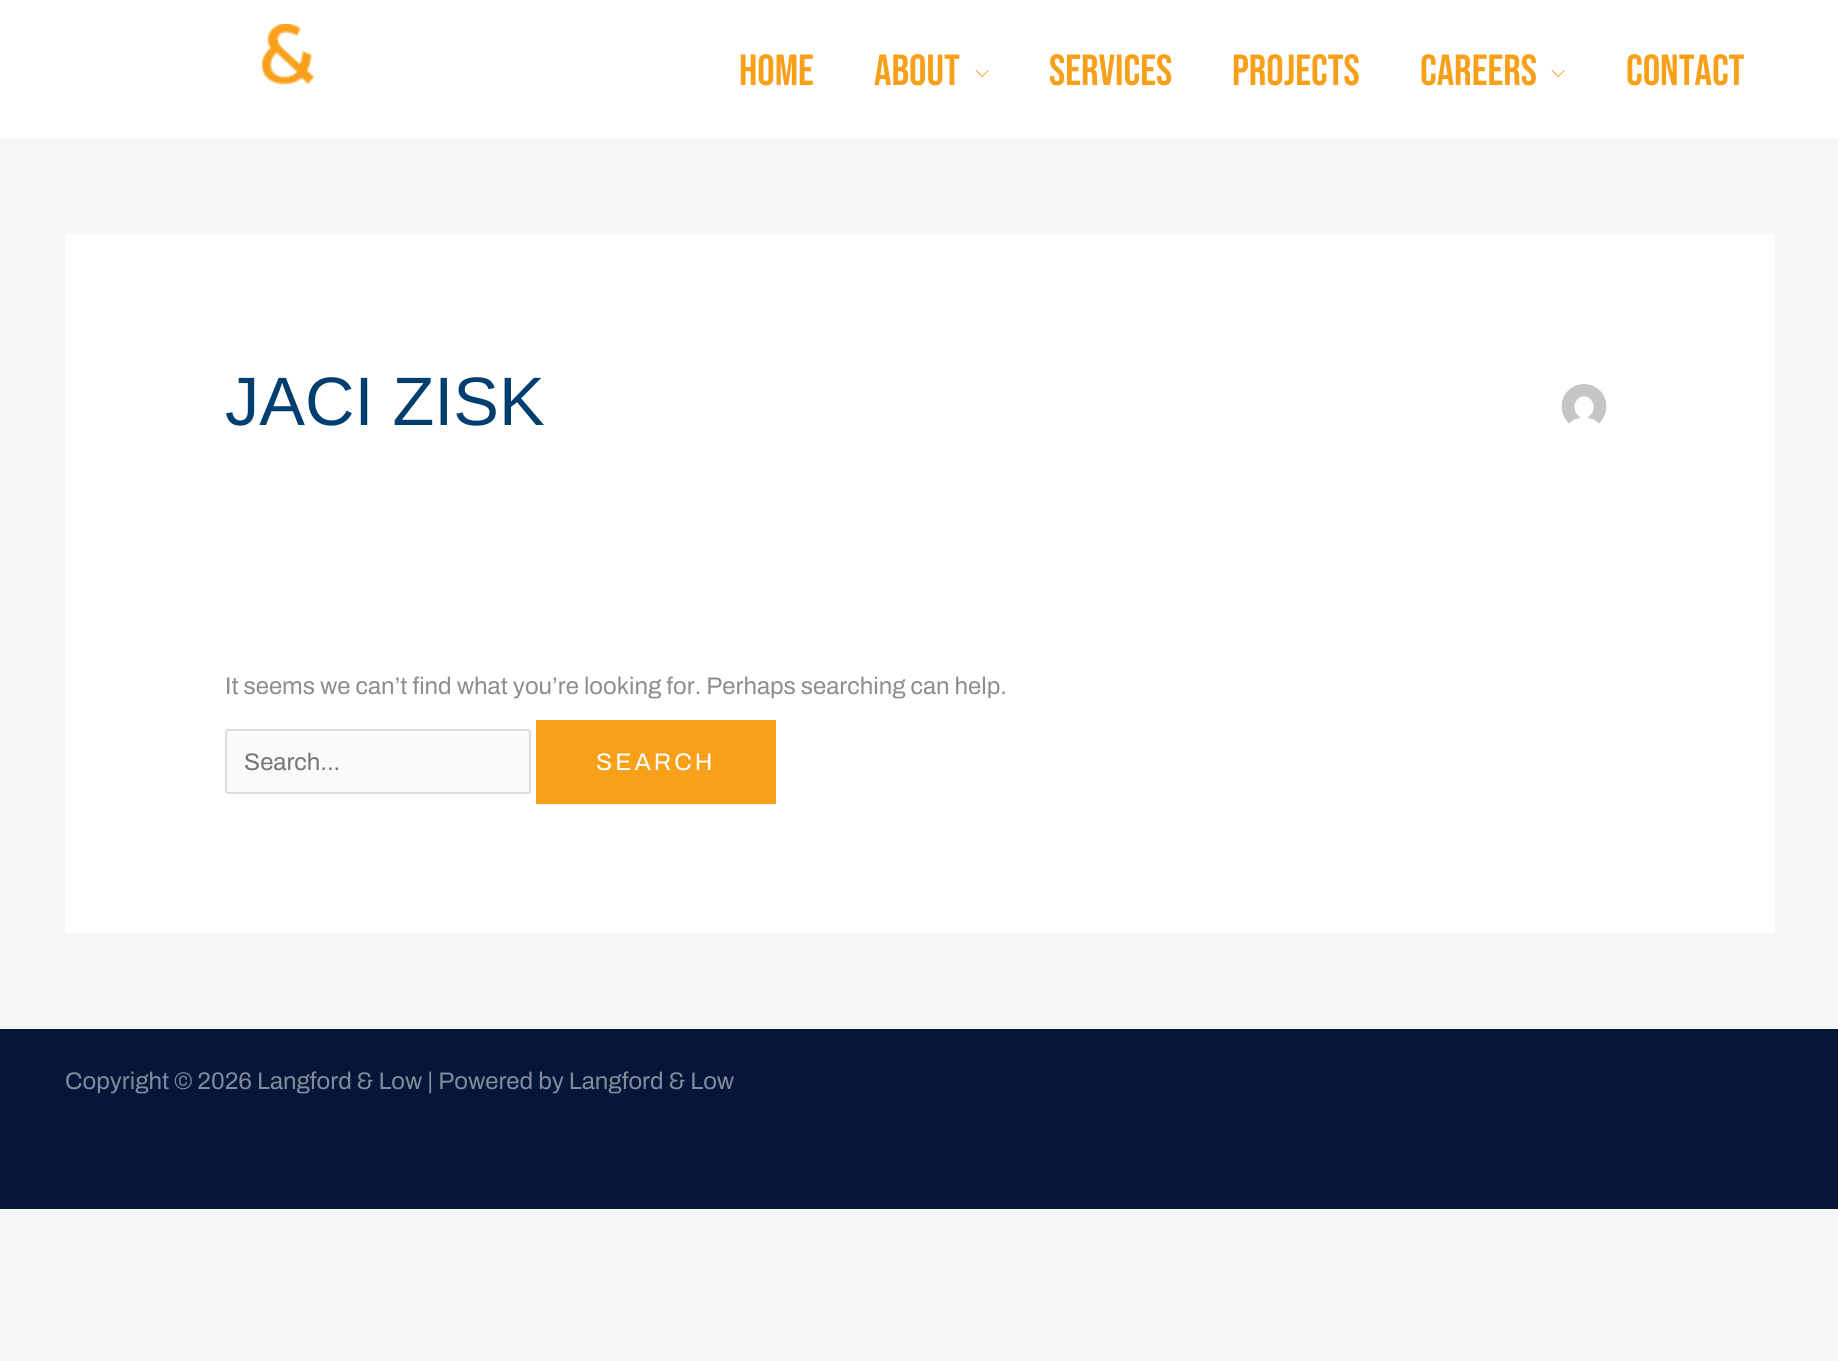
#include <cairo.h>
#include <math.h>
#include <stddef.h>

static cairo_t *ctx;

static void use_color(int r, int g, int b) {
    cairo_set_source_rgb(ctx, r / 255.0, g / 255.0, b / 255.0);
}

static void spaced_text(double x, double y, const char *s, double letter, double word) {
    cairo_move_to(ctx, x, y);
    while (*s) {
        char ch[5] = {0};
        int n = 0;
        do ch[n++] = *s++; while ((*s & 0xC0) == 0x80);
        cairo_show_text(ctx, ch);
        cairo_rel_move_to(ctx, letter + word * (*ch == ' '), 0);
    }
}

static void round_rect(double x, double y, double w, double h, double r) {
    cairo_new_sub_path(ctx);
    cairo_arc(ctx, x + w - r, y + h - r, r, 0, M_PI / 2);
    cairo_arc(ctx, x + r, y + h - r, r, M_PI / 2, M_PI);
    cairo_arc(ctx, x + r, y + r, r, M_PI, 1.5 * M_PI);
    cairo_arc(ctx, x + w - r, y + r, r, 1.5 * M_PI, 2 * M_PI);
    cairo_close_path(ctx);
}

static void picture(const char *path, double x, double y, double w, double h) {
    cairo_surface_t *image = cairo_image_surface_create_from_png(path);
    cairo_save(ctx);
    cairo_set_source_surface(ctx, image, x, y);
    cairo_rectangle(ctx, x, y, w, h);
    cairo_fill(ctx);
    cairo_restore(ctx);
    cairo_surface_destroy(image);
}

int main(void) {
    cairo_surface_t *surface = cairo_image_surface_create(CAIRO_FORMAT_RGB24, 1838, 1361);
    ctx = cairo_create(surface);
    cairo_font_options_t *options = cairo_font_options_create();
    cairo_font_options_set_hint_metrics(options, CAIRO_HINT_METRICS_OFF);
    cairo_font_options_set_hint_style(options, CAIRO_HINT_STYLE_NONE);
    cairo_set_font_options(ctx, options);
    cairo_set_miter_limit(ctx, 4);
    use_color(246, 246, 246);
    cairo_paint(ctx);
    use_color(255, 255, 255);
    cairo_rectangle(ctx, 0, 0, 1838, 138);
    cairo_fill(ctx);
    picture("img1.png", 260, 24, 55, 61);
    cairo_select_font_face(ctx, "Bebas Neue", CAIRO_FONT_SLANT_NORMAL, CAIRO_FONT_WEIGHT_NORMAL);
    cairo_set_font_size(ctx, 43.5);
    use_color(249, 160, 27);
    cairo_move_to(ctx, 739, 85);
    cairo_show_text(ctx, "Home");
    cairo_move_to(ctx, 874, 85);
    cairo_show_text(ctx, "About");
    picture("img2.png", 975, 70, 14, 7);
    cairo_move_to(ctx, 1049, 85);
    cairo_show_text(ctx, "Services");
    cairo_move_to(ctx, 1232, 85);
    cairo_show_text(ctx, "Projects");
    cairo_move_to(ctx, 1420, 85);
    cairo_show_text(ctx, "Careers");
    picture("img2.png", 1551, 70, 14, 7);
    cairo_move_to(ctx, 1626, 85);
    cairo_show_text(ctx, "Contact");
    use_color(255, 255, 255);
    cairo_rectangle(ctx, 65, 234, 1710, 699);
    cairo_fill(ctx);
    cairo_select_font_face(ctx, "Liberation Sans", CAIRO_FONT_SLANT_NORMAL, CAIRO_FONT_WEIGHT_NORMAL);
    cairo_set_font_size(ctx, 68.5);
    use_color(0, 62, 112);
    cairo_move_to(ctx, 225, 425);
    cairo_show_text(ctx, "JACI ZISK");
    picture("img3.png", 1561, 384, 46, 40);
    cairo_select_font_face(ctx, "Archivo SemiBold", CAIRO_FONT_SLANT_NORMAL, CAIRO_FONT_WEIGHT_NORMAL);
    cairo_set_font_size(ctx, 24);
    use_color(139, 141, 144);
    cairo_move_to(ctx, 225, 694);
    cairo_show_text(ctx, "It seems we can’t find what you’re looking for. Perhaps searching can help.");
    use_color(250, 250, 250);
    round_rect(226, 730, 304, 63, 2);
    cairo_fill_preserve(ctx);
    use_color(221, 221, 221);
    cairo_stroke(ctx);
    use_color(117, 117, 117);
    cairo_move_to(ctx, 244, 770);
    cairo_show_text(ctx, "Search...");
    use_color(249, 160, 27);
    cairo_rectangle(ctx, 536, 720, 240, 84);
    cairo_fill(ctx);
    use_color(255, 255, 255);
    spaced_text(596, 770, "SEARCH", 3, 0);
    use_color(5, 22, 57);
    cairo_rectangle(ctx, 0, 1029, 1838, 180);
    cairo_fill(ctx);
    use_color(130, 139, 156);
    cairo_move_to(ctx, 65, 1089);
    cairo_show_text(ctx, "Copyright © 2026 Langford & Low | Powered by Langford & Low");
    cairo_surface_write_to_png(surface, "result.png");
    cairo_font_options_destroy(options);
    cairo_destroy(ctx);
    cairo_surface_destroy(surface);
    return 0;
}
